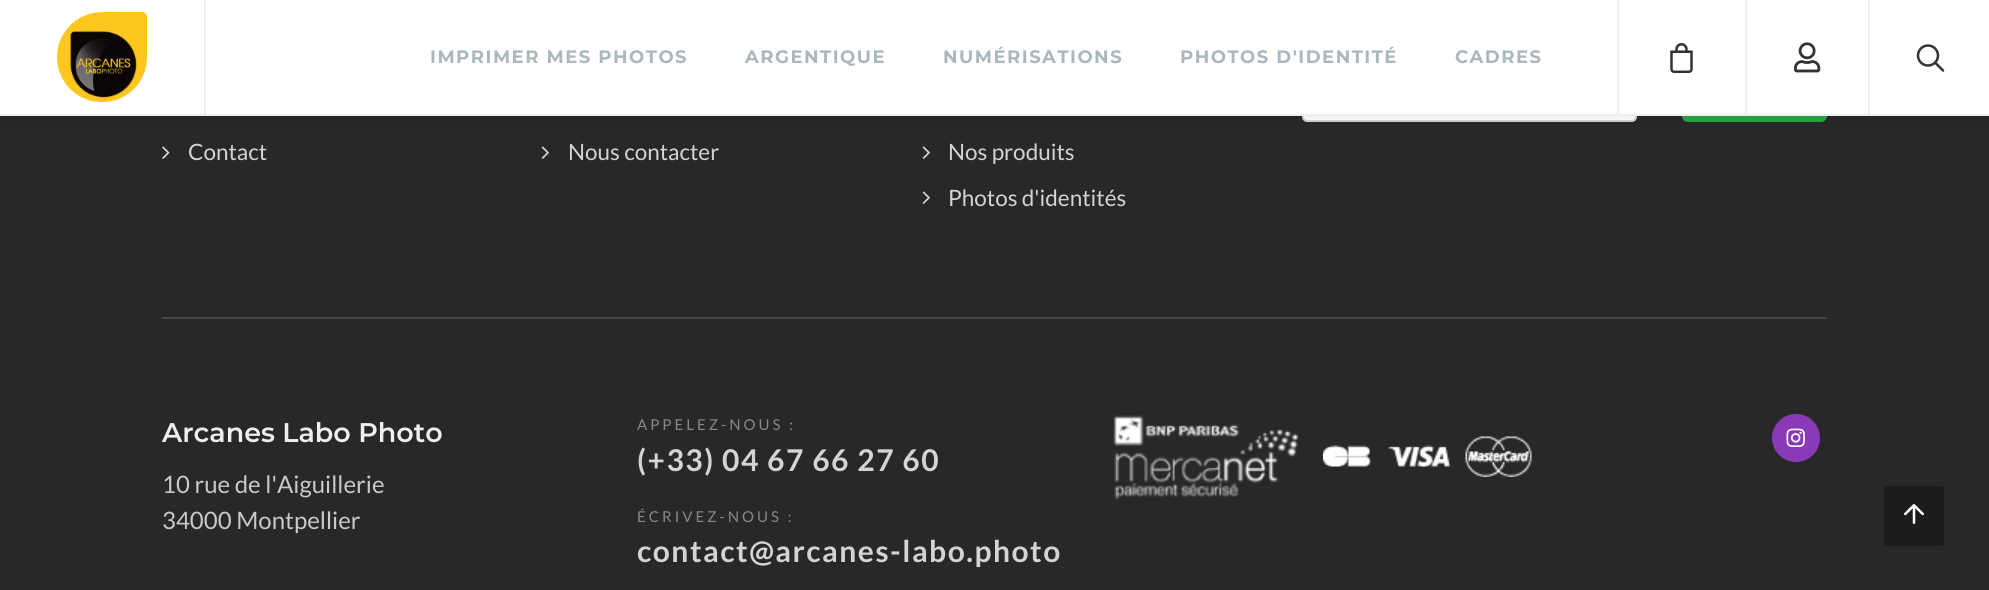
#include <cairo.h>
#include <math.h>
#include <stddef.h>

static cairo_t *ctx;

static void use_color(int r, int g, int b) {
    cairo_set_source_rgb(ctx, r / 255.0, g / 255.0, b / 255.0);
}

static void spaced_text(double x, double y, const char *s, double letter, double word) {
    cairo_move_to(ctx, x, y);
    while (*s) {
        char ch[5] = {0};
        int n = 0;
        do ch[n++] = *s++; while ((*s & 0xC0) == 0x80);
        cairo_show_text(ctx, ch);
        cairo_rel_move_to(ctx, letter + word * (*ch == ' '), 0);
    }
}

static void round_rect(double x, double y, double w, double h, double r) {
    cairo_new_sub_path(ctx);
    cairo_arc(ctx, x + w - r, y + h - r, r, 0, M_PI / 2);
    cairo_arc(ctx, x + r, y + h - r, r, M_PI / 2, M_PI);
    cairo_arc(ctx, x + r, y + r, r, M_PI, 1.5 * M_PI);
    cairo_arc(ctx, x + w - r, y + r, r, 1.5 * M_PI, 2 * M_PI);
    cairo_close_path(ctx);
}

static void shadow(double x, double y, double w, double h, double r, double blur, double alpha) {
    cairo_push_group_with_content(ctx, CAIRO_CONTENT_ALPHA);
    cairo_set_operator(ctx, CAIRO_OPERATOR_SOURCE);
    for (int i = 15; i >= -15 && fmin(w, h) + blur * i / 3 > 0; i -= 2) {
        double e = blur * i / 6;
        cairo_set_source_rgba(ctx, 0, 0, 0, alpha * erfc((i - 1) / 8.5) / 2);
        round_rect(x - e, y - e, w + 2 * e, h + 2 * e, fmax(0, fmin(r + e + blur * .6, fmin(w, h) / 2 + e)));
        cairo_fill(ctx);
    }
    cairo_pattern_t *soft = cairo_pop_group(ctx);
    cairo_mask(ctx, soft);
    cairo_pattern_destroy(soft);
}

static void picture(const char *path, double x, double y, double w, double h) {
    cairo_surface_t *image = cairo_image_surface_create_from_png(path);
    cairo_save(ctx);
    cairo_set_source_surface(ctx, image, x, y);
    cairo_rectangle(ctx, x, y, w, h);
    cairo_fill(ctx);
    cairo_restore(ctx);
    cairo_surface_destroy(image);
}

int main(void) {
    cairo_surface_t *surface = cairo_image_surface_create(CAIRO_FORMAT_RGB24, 1989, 590);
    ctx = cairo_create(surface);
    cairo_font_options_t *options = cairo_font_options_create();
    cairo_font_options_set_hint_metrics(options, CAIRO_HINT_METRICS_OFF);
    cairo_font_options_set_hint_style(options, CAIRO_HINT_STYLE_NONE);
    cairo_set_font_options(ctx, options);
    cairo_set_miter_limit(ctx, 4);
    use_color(40, 40, 40);
    cairo_paint(ctx);
    use_color(255, 255, 255);
    round_rect(1303, 66, 333, 55, 4);
    cairo_fill_preserve(ctx);
    use_color(206, 212, 218);
    cairo_stroke(ctx);
    use_color(40, 167, 69);
    round_rect(1683, 66, 143, 55, 5);
    cairo_fill_preserve(ctx);
    cairo_stroke(ctx);
    use_color(0, 0, 0);
    shadow(0, 0, 1989, 116, 0, 7.5, 0.1);
    use_color(255, 255, 255);
    cairo_rectangle(ctx, 0, 0, 1989, 114);
    cairo_fill(ctx);
    use_color(238, 238, 238);
    cairo_rectangle(ctx, 0, 114, 1989, 2);
    cairo_fill(ctx);
    cairo_rectangle(ctx, 204, 0, 2, 114);
    cairo_fill(ctx);
    picture("img1.png", 57, 12, 90, 90);
    cairo_select_font_face(ctx, "Montserrat", CAIRO_FONT_SLANT_NORMAL, CAIRO_FONT_WEIGHT_BOLD);
    cairo_set_font_size(ctx, 18);
    use_color(170, 183, 189);
    spaced_text(430, 63, "IMPRIMER MES PHOTOS", 1.5, 0);
    spaced_text(745, 63, "ARGENTIQUE", 1.5, 0);
    spaced_text(943, 63, "NUMÉRISATIONS", 1.5, 0);
    spaced_text(1180, 63, "PHOTOS D'IDENTITÉ", 1.5, 0);
    spaced_text(1455, 63, "CADRES", 1.5, 0);
    use_color(238, 238, 238);
    cairo_rectangle(ctx, 1617, 0, 2, 114);
    cairo_fill(ctx);
    picture("img2.png", 1670, 43, 23, 30);
    cairo_rectangle(ctx, 1745, 0, 2, 114);
    cairo_fill(ctx);
    picture("img3.png", 1794, 42, 27, 31);
    cairo_rectangle(ctx, 1868, 0, 2, 114);
    cairo_fill(ctx);
    picture("img4.png", 1916, 44, 29, 28);
    picture("img5.png", 162, 146, 8, 13);
    cairo_select_font_face(ctx, "Lato", CAIRO_FONT_SLANT_NORMAL, CAIRO_FONT_WEIGHT_NORMAL);
    cairo_set_font_size(ctx, 22.5);
    use_color(212, 212, 212);
    cairo_move_to(ctx, 188, 160);
    cairo_show_text(ctx, "Contact");
    picture("img6.png", 541, 146, 8, 13);
    cairo_move_to(ctx, 568, 160);
    cairo_show_text(ctx, "Nous contacter");
    picture("img6.png", 922, 146, 8, 13);
    cairo_move_to(ctx, 948, 160);
    cairo_show_text(ctx, "Nos produits");
    picture("img6.png", 922, 191, 8, 13);
    cairo_move_to(ctx, 948, 206);
    cairo_show_text(ctx, "Photos d'identités");
    use_color(72, 72, 72);
    cairo_rectangle(ctx, 162, 317, 1665, 2);
    cairo_fill(ctx);
    cairo_select_font_face(ctx, "Montserrat SemiBold", CAIRO_FONT_SLANT_NORMAL, CAIRO_FONT_WEIGHT_NORMAL);
    cairo_set_font_size(ctx, 27);
    use_color(238, 238, 238);
    cairo_move_to(ctx, 162, 442);
    cairo_show_text(ctx, "Arcanes Labo Photo");
    cairo_select_font_face(ctx, "Lato", CAIRO_FONT_SLANT_NORMAL, CAIRO_FONT_WEIGHT_NORMAL);
    cairo_set_font_size(ctx, 24);
    use_color(201, 201, 201);
    cairo_move_to(ctx, 162, 493);
    cairo_show_text(ctx, "10 rue de l'Aiguillerie");
    cairo_move_to(ctx, 162, 529);
    cairo_show_text(ctx, "34000 Montpellier");
    cairo_set_font_size(ctx, 15);
    use_color(136, 136, 136);
    spaced_text(637, 430, "APPELEZ-NOUS :", 3, 0);
    cairo_select_font_face(ctx, "Lato", CAIRO_FONT_SLANT_NORMAL, CAIRO_FONT_WEIGHT_BOLD);
    cairo_set_font_size(ctx, 30);
    use_color(212, 212, 212);
    spaced_text(637, 471, "(+33) 04 67 66 27 60", 1.5, 0);
    cairo_select_font_face(ctx, "Lato", CAIRO_FONT_SLANT_NORMAL, CAIRO_FONT_WEIGHT_NORMAL);
    cairo_set_font_size(ctx, 15);
    use_color(136, 136, 136);
    spaced_text(637, 522, "ÉCRIVEZ-NOUS :", 3, 0);
    cairo_select_font_face(ctx, "Lato", CAIRO_FONT_SLANT_NORMAL, CAIRO_FONT_WEIGHT_BOLD);
    cairo_set_font_size(ctx, 30);
    use_color(212, 212, 212);
    spaced_text(637, 562, "contact@arcanes-labo.photo", 1.5, 0);
    picture("img7.png", 1113, 415, 186, 85);
    picture("img8.png", 1323, 436, 209, 41);
    use_color(138, 58, 185);
    cairo_arc(ctx, 1796, 438, 24, 0, 2 * M_PI);
    cairo_fill(ctx);
    picture("img9.png", 1786, 428, 19, 19);
    use_color(28, 28, 28);
    round_rect(1884, 486, 60, 60, 3);
    cairo_fill(ctx);
    picture("img10.png", 1904, 504, 20, 20);
    cairo_surface_write_to_png(surface, "result.png");
    cairo_font_options_destroy(options);
    cairo_destroy(ctx);
    cairo_surface_destroy(surface);
    return 0;
}
